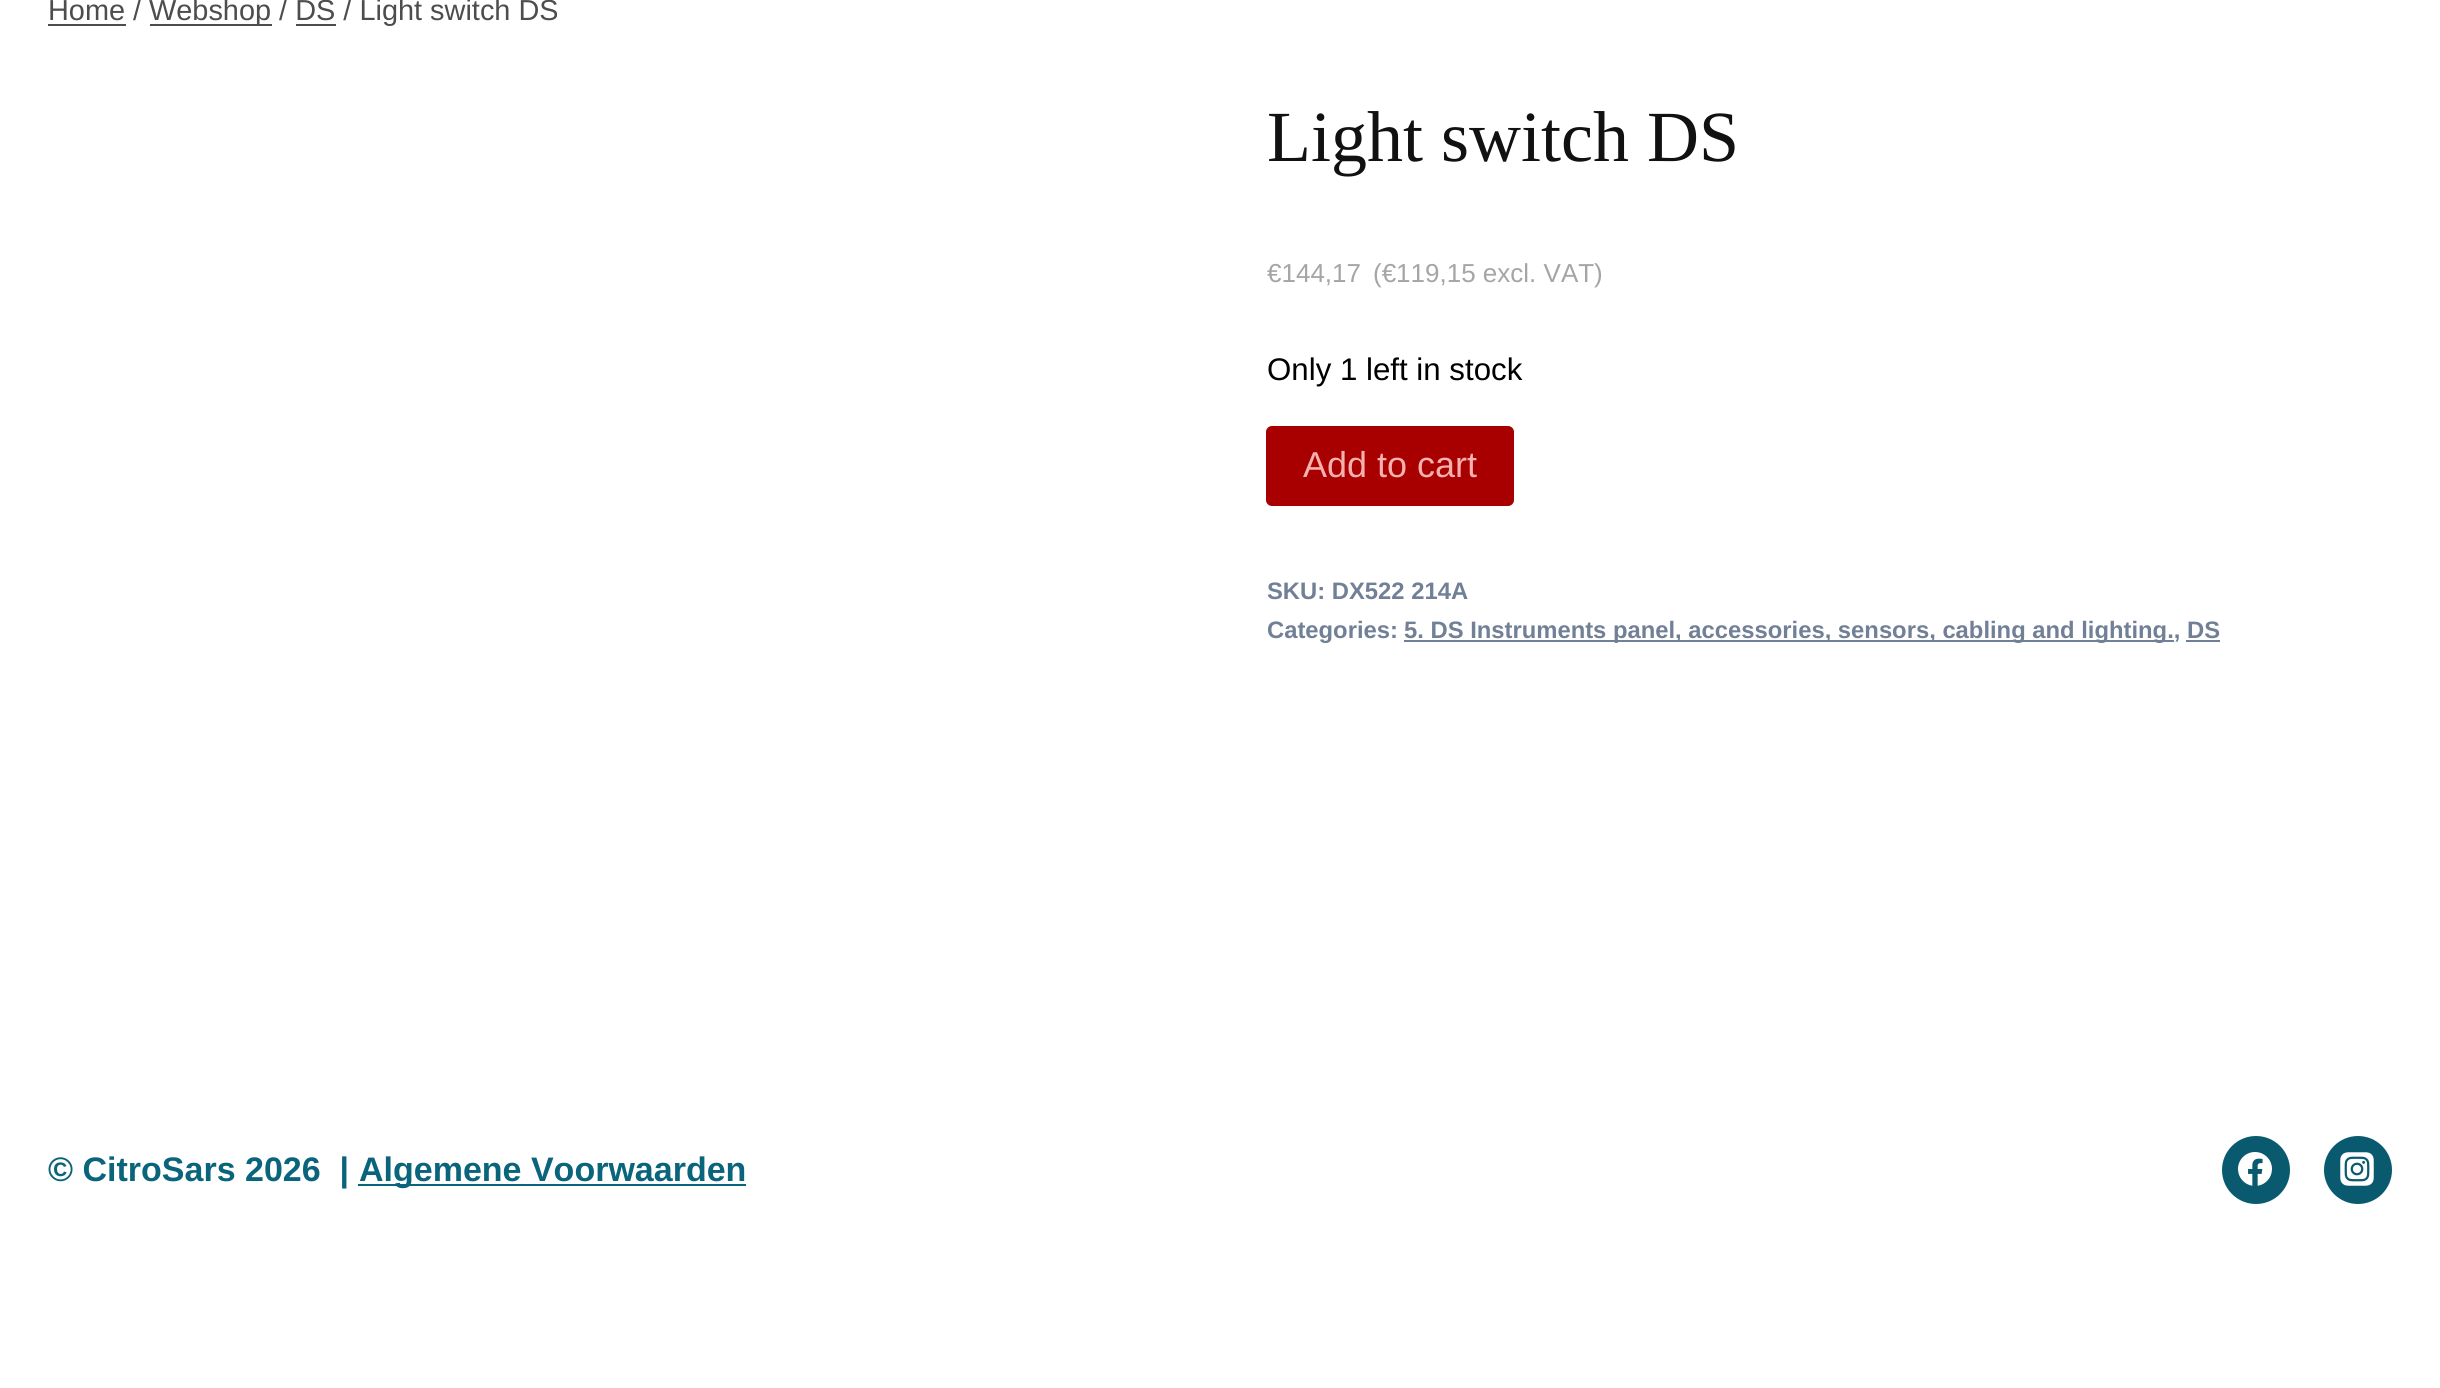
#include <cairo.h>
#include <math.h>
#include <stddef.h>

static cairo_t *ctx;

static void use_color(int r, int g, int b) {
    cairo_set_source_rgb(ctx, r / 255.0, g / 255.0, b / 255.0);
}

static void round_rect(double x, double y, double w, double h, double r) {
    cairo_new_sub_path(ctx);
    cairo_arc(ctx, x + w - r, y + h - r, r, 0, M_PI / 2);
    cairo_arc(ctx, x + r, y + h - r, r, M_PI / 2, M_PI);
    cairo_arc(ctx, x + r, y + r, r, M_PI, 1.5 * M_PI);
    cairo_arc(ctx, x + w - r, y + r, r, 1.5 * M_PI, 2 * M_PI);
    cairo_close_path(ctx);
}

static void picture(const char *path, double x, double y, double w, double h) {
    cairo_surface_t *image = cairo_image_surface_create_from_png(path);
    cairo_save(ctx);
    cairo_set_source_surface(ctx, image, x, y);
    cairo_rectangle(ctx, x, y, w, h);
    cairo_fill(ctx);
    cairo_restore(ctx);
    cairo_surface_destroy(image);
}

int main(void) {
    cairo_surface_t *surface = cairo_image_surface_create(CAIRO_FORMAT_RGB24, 2440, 1388);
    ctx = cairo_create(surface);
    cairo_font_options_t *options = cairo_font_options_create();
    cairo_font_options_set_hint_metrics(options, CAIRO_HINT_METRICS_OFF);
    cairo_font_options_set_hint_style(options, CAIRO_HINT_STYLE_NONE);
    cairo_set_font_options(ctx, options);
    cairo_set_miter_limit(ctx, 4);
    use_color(255, 255, 255);
    cairo_paint(ctx);
    cairo_select_font_face(ctx, "Liberation Sans", CAIRO_FONT_SLANT_NORMAL, CAIRO_FONT_WEIGHT_NORMAL);
    cairo_set_font_size(ctx, 28.9);
    use_color(77, 77, 77);
    cairo_move_to(ctx, 48, 20);
    cairo_show_text(ctx, "Home /");
    cairo_rectangle(ctx, 48, 24, 78, 2);
    cairo_fill(ctx);
    cairo_rectangle(ctx, 150, 24, 122, 2);
    cairo_fill(ctx);
    cairo_move_to(ctx, 149, 20);
    cairo_show_text(ctx, "Webshop / DS / Light switch DS");
    cairo_rectangle(ctx, 296, 24, 40, 2);
    cairo_fill(ctx);
    cairo_select_font_face(ctx, "Liberation Serif", CAIRO_FONT_SLANT_NORMAL, CAIRO_FONT_WEIGHT_NORMAL);
    cairo_set_font_size(ctx, 72);
    use_color(17, 17, 17);
    cairo_move_to(ctx, 1267, 161);
    cairo_show_text(ctx, "Light switch DS");
    cairo_select_font_face(ctx, "Liberation Sans", CAIRO_FONT_SLANT_NORMAL, CAIRO_FONT_WEIGHT_NORMAL);
    cairo_set_font_size(ctx, 26);
    use_color(165, 165, 165);
    cairo_move_to(ctx, 1267, 282);
    cairo_show_text(ctx, "€144,17");
    cairo_move_to(ctx, 1373, 282);
    cairo_show_text(ctx, "(€119,15 excl. VAT)");
    cairo_set_font_size(ctx, 31.25);
    use_color(0, 0, 0);
    cairo_move_to(ctx, 1267, 380);
    cairo_show_text(ctx, "Only 1 left in stock");
    use_color(168, 0, 0);
    round_rect(1266, 426, 248, 80, 6);
    cairo_fill(ctx);
    cairo_set_font_size(ctx, 36);
    use_color(247, 176, 176);
    cairo_move_to(ctx, 1303, 477);
    cairo_show_text(ctx, "Add to cart");
    cairo_select_font_face(ctx, "Liberation Sans", CAIRO_FONT_SLANT_NORMAL, CAIRO_FONT_WEIGHT_BOLD);
    cairo_set_font_size(ctx, 23.8);
    use_color(113, 128, 150);
    cairo_move_to(ctx, 1267, 599);
    cairo_show_text(ctx, "SKU: DX522 214A");
    cairo_move_to(ctx, 1267, 638);
    cairo_show_text(ctx, "Categories:");
    cairo_rectangle(ctx, 1404, 640, 770, 2);
    cairo_fill(ctx);
    cairo_move_to(ctx, 1404, 638);
    cairo_show_text(ctx, "5. DS Instruments panel, accessories, sensors, cabling and lighting., DS");
    cairo_rectangle(ctx, 2186, 640, 34, 2);
    cairo_fill(ctx);
    cairo_set_font_size(ctx, 34);
    use_color(10, 100, 124);
    cairo_move_to(ctx, 48, 1181);
    cairo_show_text(ctx, "© CitroSars 2026  |");
    cairo_rectangle(ctx, 358, 1184, 388, 2);
    cairo_fill(ctx);
    cairo_move_to(ctx, 359, 1181);
    cairo_show_text(ctx, "Algemene Voorwaarden");
    use_color(9, 90, 111);
    cairo_new_path(ctx);
    cairo_arc(ctx, 2256, 1170, 34, 0, 2 * M_PI);
    cairo_fill(ctx);
    picture("img1.png", 2238, 1152, 34, 34);
    cairo_arc(ctx, 2358, 1170, 34, 0, 2 * M_PI);
    cairo_fill(ctx);
    picture("img2.png", 2340, 1152, 34, 34);
    cairo_surface_write_to_png(surface, "result.png");
    cairo_font_options_destroy(options);
    cairo_destroy(ctx);
    cairo_surface_destroy(surface);
    return 0;
}
